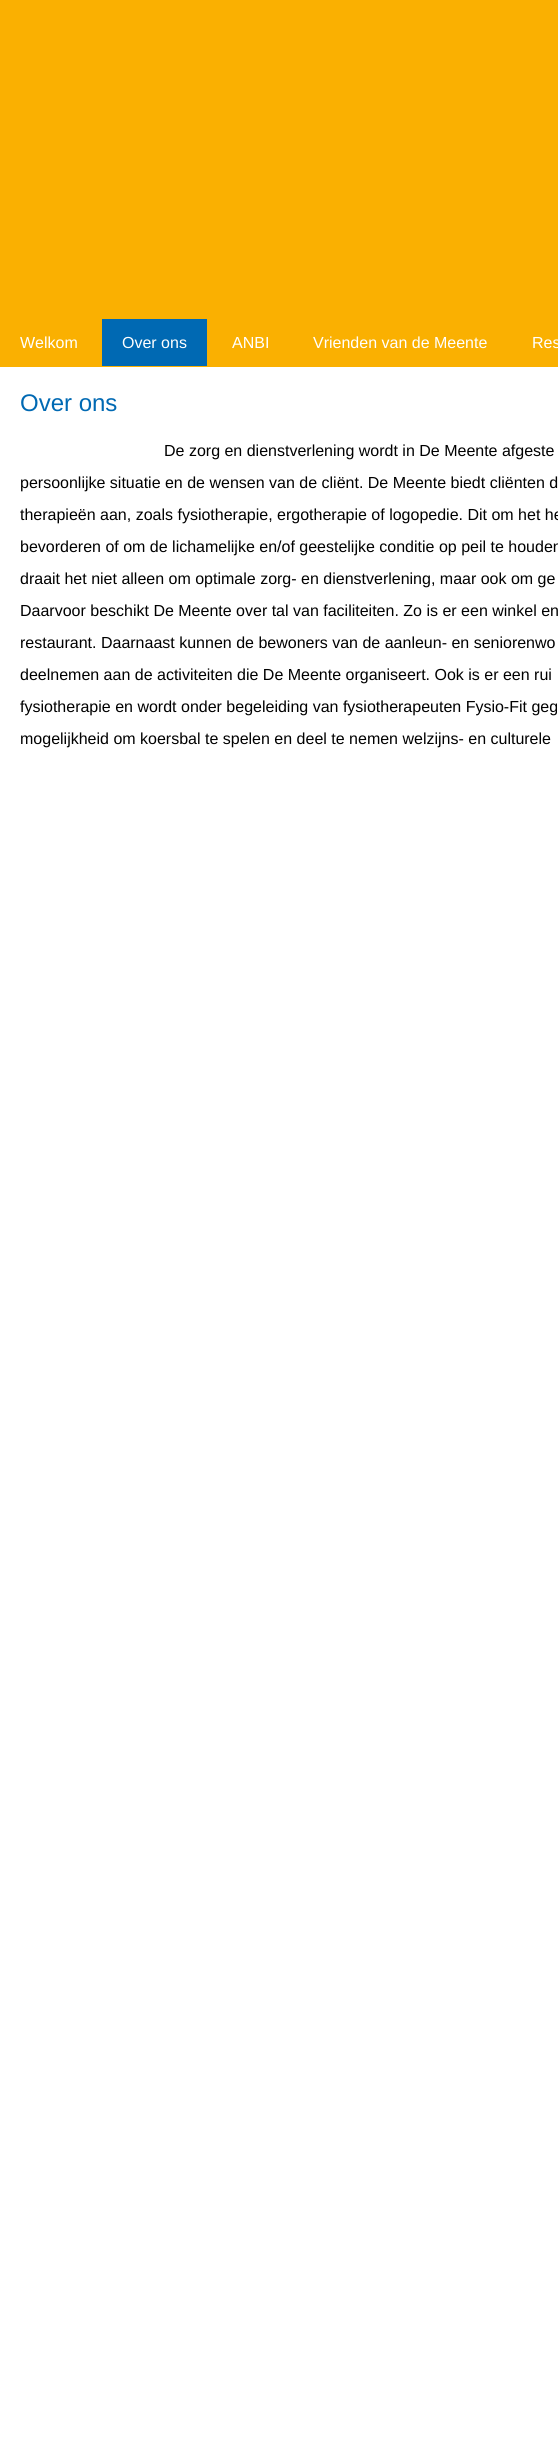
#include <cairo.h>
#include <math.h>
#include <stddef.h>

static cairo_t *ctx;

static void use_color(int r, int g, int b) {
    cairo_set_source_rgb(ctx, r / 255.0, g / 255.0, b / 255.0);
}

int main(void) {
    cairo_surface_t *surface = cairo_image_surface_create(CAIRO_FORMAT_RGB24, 558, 2440);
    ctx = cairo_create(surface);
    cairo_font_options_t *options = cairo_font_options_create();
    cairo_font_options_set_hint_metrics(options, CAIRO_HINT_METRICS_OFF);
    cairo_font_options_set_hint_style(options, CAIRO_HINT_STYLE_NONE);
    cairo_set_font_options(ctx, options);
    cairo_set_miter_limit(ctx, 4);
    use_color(255, 255, 255);
    cairo_paint(ctx);
    use_color(250, 176, 1);
    cairo_rectangle(ctx, 0, 0, 558, 367);
    cairo_fill(ctx);
    cairo_select_font_face(ctx, "Liberation Sans", CAIRO_FONT_SLANT_NORMAL, CAIRO_FONT_WEIGHT_NORMAL);
    cairo_set_font_size(ctx, 16);
    use_color(255, 255, 255);
    cairo_move_to(ctx, 20, 348);
    cairo_show_text(ctx, "Welkom");
    use_color(0, 105, 179);
    cairo_rectangle(ctx, 102, 319, 105, 47);
    cairo_fill(ctx);
    use_color(255, 255, 255);
    cairo_move_to(ctx, 122, 348);
    cairo_show_text(ctx, "Over ons");
    cairo_move_to(ctx, 232, 348);
    cairo_show_text(ctx, "ANBI");
    cairo_move_to(ctx, 313, 348);
    cairo_show_text(ctx, "Vrienden van de Meente");
    cairo_move_to(ctx, 532, 348);
    cairo_show_text(ctx, "Res");
    cairo_set_font_size(ctx, 24);
    use_color(0, 105, 179);
    cairo_move_to(ctx, 20, 411);
    cairo_show_text(ctx, "Over ons");
    cairo_set_font_size(ctx, 16);
    use_color(0, 0, 0);
    cairo_move_to(ctx, 164, 456);
    cairo_show_text(ctx, "De zorg en dienstverlening wordt in De Meente afgeste");
    cairo_move_to(ctx, 20, 488);
    cairo_show_text(ctx, "persoonlijke situatie en de wensen van de cliënt. De Meente biedt cliënten d");
    cairo_move_to(ctx, 20, 520);
    cairo_show_text(ctx, "therapieën aan, zoals fysiotherapie, ergotherapie of logopedie. Dit om het he");
    cairo_move_to(ctx, 20, 552);
    cairo_show_text(ctx, "bevorderen of om de lichamelijke en/of geestelijke conditie op peil te houden");
    cairo_move_to(ctx, 20, 584);
    cairo_show_text(ctx, "draait het niet alleen om optimale zorg- en dienstverlening, maar ook om ge");
    cairo_move_to(ctx, 20, 616);
    cairo_show_text(ctx, "Daarvoor beschikt De Meente over tal van faciliteiten. Zo is er een winkel en");
    cairo_move_to(ctx, 20, 648);
    cairo_show_text(ctx, "restaurant. Daarnaast kunnen de bewoners van de aanleun- en seniorenwo");
    cairo_move_to(ctx, 20, 680);
    cairo_show_text(ctx, "deelnemen aan de activiteiten die De Meente organiseert. Ook is er een rui");
    cairo_move_to(ctx, 20, 712);
    cairo_show_text(ctx, "fysiotherapie en wordt onder begeleiding van fysiotherapeuten Fysio-Fit geg");
    cairo_move_to(ctx, 20, 744);
    cairo_show_text(ctx, "mogelijkheid om koersbal te spelen en deel te nemen welzijns- en culturele");
    cairo_surface_write_to_png(surface, "result.png");
    cairo_font_options_destroy(options);
    cairo_destroy(ctx);
    cairo_surface_destroy(surface);
    return 0;
}
